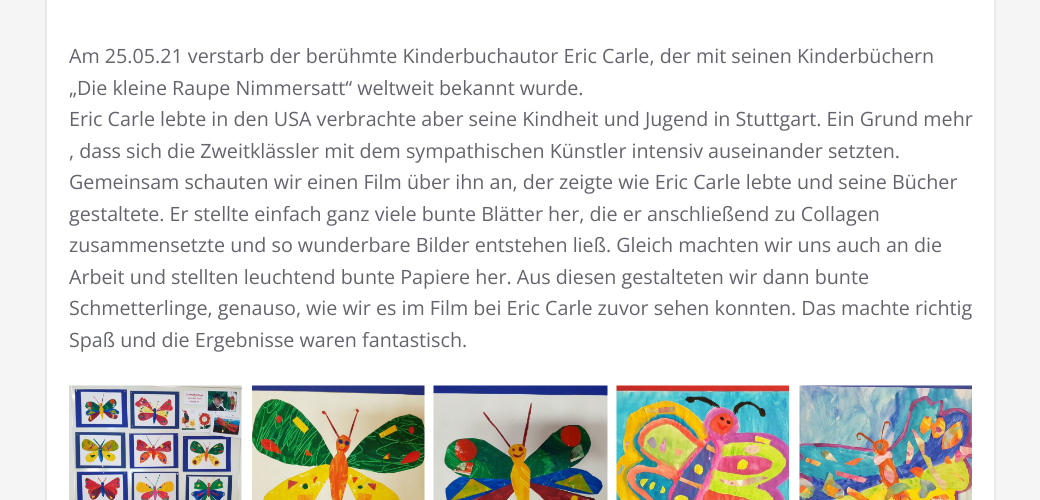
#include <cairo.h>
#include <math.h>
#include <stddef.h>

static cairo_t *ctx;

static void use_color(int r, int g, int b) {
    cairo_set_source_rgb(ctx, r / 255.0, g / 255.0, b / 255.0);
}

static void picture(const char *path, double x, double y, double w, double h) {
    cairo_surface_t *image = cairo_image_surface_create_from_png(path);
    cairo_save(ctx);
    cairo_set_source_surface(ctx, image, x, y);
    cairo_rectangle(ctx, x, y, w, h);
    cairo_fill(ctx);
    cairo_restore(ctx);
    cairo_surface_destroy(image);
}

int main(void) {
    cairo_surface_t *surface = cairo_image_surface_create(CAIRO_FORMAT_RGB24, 1040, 500);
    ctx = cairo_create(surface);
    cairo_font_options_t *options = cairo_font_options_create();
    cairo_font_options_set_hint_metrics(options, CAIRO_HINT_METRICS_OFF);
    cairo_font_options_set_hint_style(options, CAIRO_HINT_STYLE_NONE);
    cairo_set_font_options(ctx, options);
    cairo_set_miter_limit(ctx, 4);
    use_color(245, 245, 245);
    cairo_paint(ctx);
    use_color(255, 255, 255);
    cairo_rectangle(ctx, 46, -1, 949, 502);
    cairo_fill_preserve(ctx);
    use_color(233, 233, 233);
    cairo_stroke(ctx);
    cairo_select_font_face(ctx, "Open Sans", CAIRO_FONT_SLANT_NORMAL, CAIRO_FONT_WEIGHT_NORMAL);
    cairo_set_font_size(ctx, 19.7);
    use_color(100, 100, 109);
    cairo_move_to(ctx, 69, 63);
    cairo_show_text(ctx, "Am 25.05.21 verstarb der berühmte Kinderbuchautor Eric Carle, der mit seinen Kinderbüchern");
    cairo_move_to(ctx, 69, 95);
    cairo_show_text(ctx, "„Die kleine Raupe Nimmersatt“ weltweit bekannt wurde.");
    cairo_move_to(ctx, 69, 126);
    cairo_show_text(ctx, "Eric Carle lebte in den USA verbrachte aber seine Kindheit und Jugend in Stuttgart. Ein Grund mehr");
    cairo_move_to(ctx, 69, 158);
    cairo_show_text(ctx, ", dass sich die Zweitklässler mit dem sympathischen Künstler intensiv auseinander setzten.");
    cairo_move_to(ctx, 69, 189);
    cairo_show_text(ctx, "Gemeinsam schauten wir einen Film über ihn an, der zeigte wie Eric Carle lebte und seine Bücher");
    cairo_move_to(ctx, 69, 221);
    cairo_show_text(ctx, "gestaltete. Er stellte einfach ganz viele bunte Blätter her, die er anschließend zu Collagen");
    cairo_move_to(ctx, 69, 252);
    cairo_show_text(ctx, "zusammensetzte und so wunderbare Bilder entstehen ließ. Gleich machten wir uns auch an die");
    cairo_move_to(ctx, 69, 284);
    cairo_show_text(ctx, "Arbeit und stellten leuchtend bunte Papiere her. Aus diesen gestalteten wir dann bunte");
    cairo_move_to(ctx, 69, 315);
    cairo_show_text(ctx, "Schmetterlinge, genauso, wie wir es im Film bei Eric Carle zuvor sehen konnten. Das machte richtig");
    cairo_move_to(ctx, 69, 347);
    cairo_show_text(ctx, "Spaß und die Ergebnisse waren fantastisch.");
    picture("img1.png", 69, 385, 173, 115);
    picture("img2.png", 252, 385, 173, 115);
    picture("img3.png", 433, 385, 175, 115);
    picture("img4.png", 616, 385, 173, 115);
    picture("img5.png", 799, 385, 173, 115);
    cairo_surface_write_to_png(surface, "result.png");
    cairo_font_options_destroy(options);
    cairo_destroy(ctx);
    cairo_surface_destroy(surface);
    return 0;
}
